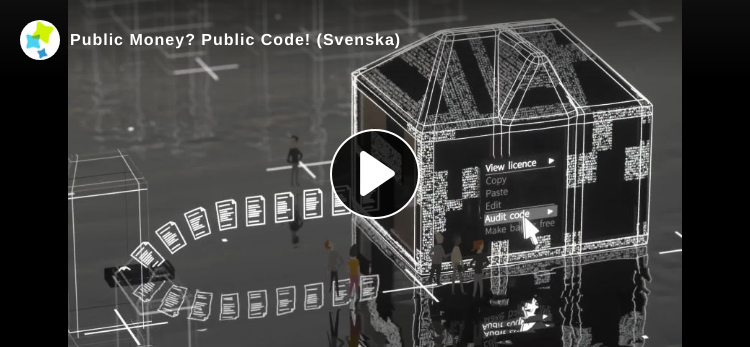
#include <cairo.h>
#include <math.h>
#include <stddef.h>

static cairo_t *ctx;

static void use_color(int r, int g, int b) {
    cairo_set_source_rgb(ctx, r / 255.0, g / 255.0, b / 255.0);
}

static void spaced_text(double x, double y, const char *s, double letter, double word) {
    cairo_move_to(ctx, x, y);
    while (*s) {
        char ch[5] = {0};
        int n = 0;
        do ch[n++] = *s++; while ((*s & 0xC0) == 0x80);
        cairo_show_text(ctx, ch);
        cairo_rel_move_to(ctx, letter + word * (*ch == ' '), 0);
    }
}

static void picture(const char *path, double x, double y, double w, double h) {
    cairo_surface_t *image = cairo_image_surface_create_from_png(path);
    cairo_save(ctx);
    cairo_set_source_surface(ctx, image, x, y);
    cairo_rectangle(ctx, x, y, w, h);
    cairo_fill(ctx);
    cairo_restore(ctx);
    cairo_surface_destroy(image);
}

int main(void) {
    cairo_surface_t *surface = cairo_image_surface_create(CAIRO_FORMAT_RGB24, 750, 347);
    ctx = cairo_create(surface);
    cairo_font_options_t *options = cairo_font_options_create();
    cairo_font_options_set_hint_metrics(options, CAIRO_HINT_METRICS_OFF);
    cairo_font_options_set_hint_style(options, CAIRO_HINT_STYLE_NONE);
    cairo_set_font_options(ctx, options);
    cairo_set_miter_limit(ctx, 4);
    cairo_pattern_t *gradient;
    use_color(0, 0, 0);
    cairo_paint(ctx);
    picture("img1.png", 68, 0, 614, 347);
    gradient = cairo_pattern_create_linear(375, 0, 375, 80);
    cairo_pattern_add_color_stop_rgba(gradient, 0, 0.078, 0.078, 0.078, 0.7);
    cairo_pattern_add_color_stop_rgba(gradient, 1, 0.078, 0.078, 0.078, 0);
    cairo_set_source(ctx, gradient);
    cairo_pattern_destroy(gradient);
    cairo_rectangle(ctx, 0, 0, 750, 78);
    cairo_fill(ctx);
    picture("img2.png", 20, 20, 40, 40);
    cairo_select_font_face(ctx, "Liberation Sans", CAIRO_FONT_SLANT_NORMAL, CAIRO_FONT_WEIGHT_BOLD);
    cairo_set_font_size(ctx, 16);
    use_color(255, 255, 255);
    spaced_text(70, 45, "Public Money? Public Code! (Svenska)", 1, 0);
    cairo_set_source_rgba(ctx, 0, 0, 0, 0.8);
    cairo_new_path(ctx);
    cairo_arc(ctx, 375, 174, 44, 0, 2 * M_PI);
    cairo_fill_preserve(ctx);
    use_color(255, 255, 255);
    cairo_stroke(ctx);
    picture("img3.png", 360, 151, 35, 45);
    cairo_surface_write_to_png(surface, "result.png");
    cairo_font_options_destroy(options);
    cairo_destroy(ctx);
    cairo_surface_destroy(surface);
    return 0;
}
